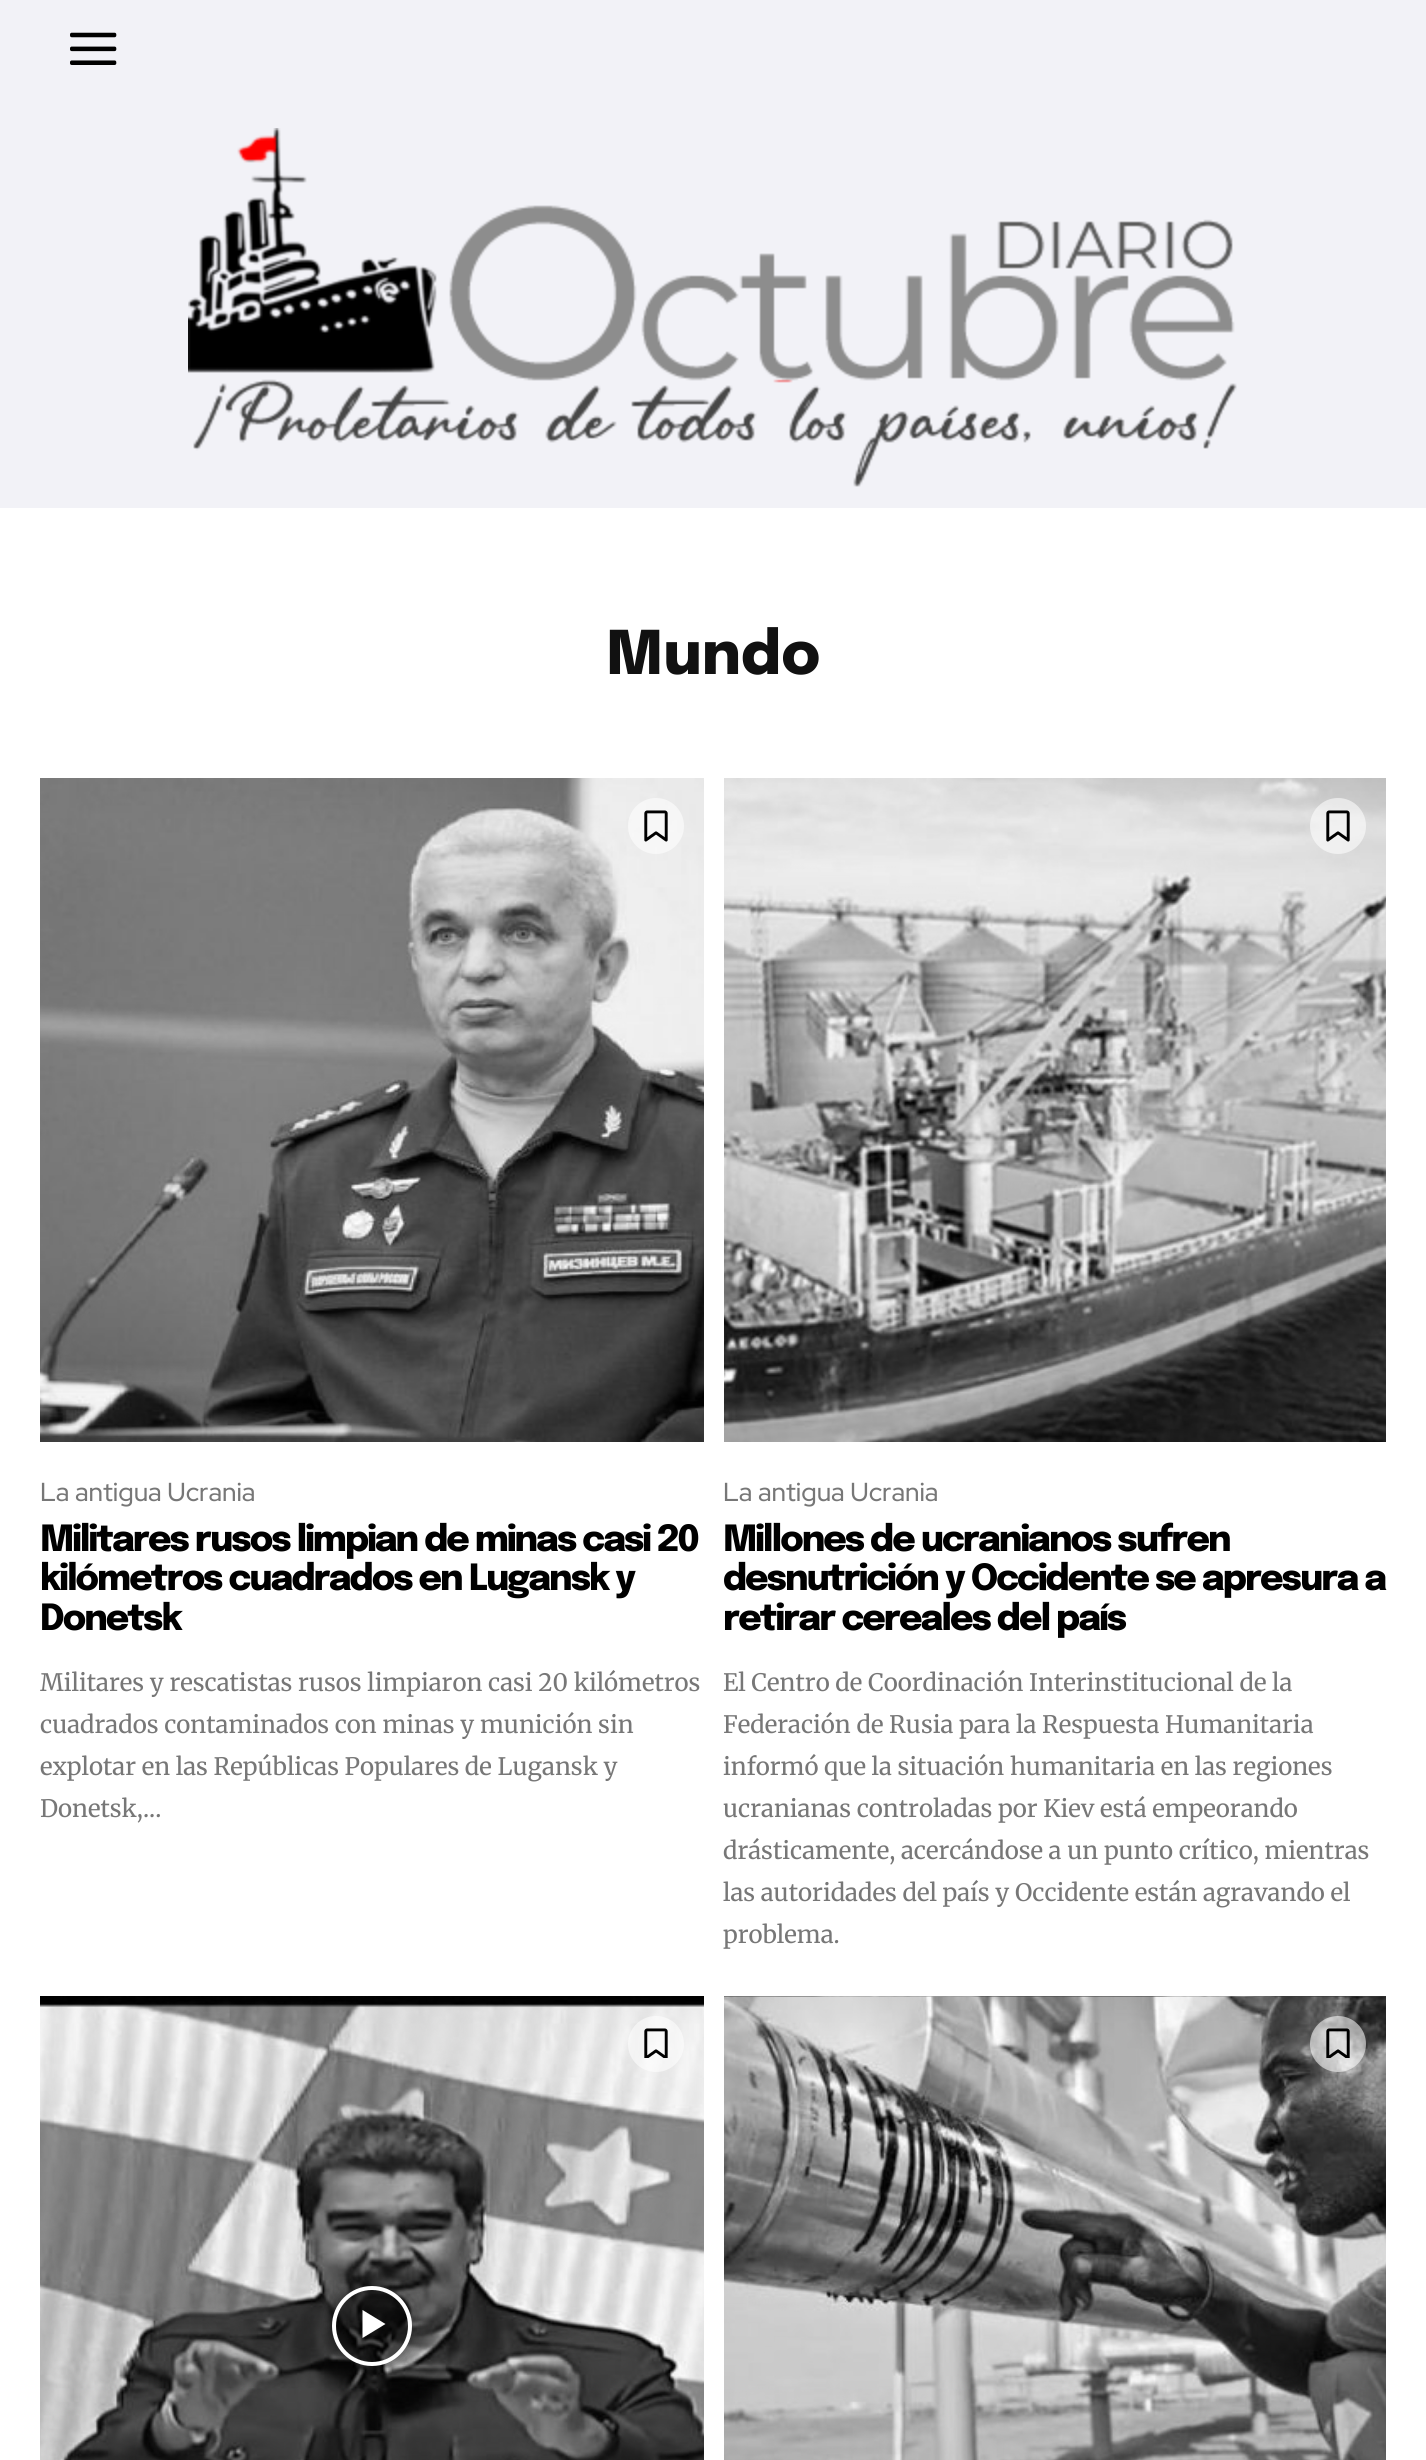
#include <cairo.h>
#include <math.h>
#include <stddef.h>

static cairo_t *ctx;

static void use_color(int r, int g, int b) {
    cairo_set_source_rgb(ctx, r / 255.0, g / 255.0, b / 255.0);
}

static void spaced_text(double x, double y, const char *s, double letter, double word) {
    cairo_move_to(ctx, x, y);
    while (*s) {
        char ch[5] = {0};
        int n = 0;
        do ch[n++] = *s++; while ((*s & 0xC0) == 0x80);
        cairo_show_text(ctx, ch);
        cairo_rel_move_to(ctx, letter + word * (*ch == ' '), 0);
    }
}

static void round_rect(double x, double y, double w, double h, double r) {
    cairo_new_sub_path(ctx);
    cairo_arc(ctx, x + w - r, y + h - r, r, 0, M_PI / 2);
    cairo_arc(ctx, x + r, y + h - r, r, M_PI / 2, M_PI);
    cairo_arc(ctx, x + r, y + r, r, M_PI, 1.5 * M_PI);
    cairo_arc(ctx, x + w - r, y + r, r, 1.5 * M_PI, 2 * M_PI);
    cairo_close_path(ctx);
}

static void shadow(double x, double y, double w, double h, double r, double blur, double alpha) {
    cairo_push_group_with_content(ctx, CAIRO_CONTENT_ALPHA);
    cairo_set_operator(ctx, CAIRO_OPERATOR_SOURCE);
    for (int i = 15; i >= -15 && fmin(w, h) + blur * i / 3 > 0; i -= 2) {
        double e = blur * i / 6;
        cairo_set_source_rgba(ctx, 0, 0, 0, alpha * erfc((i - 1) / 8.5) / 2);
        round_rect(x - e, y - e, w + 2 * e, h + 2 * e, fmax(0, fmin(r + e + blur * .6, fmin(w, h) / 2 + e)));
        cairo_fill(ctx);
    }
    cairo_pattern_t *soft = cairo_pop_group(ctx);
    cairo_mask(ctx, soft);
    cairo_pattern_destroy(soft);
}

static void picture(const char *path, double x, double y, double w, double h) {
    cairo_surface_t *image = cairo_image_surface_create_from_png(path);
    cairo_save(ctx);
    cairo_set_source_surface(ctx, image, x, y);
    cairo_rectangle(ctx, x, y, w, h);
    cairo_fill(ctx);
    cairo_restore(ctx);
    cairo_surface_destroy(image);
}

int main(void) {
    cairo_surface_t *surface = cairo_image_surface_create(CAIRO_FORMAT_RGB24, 1426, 2460);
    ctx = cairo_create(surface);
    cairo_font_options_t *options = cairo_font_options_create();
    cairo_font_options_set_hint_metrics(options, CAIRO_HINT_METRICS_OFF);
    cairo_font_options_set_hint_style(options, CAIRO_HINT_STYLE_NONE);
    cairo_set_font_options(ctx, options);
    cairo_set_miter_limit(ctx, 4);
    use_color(242, 242, 247);
    cairo_paint(ctx);
    picture("img1.png", 70, 32, 47, 33);
    picture("img2.png", 188, 128, 1049, 359);
    use_color(255, 255, 255);
    cairo_rectangle(ctx, 0, 508, 1426, 1952);
    cairo_fill(ctx);
    cairo_select_font_face(ctx, "Epilogue ExtraBold", CAIRO_FONT_SLANT_NORMAL, CAIRO_FONT_WEIGHT_NORMAL);
    cairo_set_font_size(ctx, 60);
    use_color(17, 17, 17);
    cairo_move_to(ctx, 606, 674);
    cairo_show_text(ctx, "Mundo");
    picture("img3.png", 40, 778, 664, 664);
    cairo_set_source_rgba(ctx, 1, 1, 1, 0.56);
    cairo_arc(ctx, 656, 826, 28, 0, 2 * M_PI);
    cairo_fill(ctx);
    picture("img4.png", 644, 810, 24, 32);
    cairo_select_font_face(ctx, "Red Hat Display Medium", CAIRO_FONT_SLANT_NORMAL, CAIRO_FONT_WEIGHT_NORMAL);
    cairo_set_font_size(ctx, 26);
    use_color(119, 119, 119);
    cairo_move_to(ctx, 40, 1501);
    cairo_show_text(ctx, "La antigua Ucrania");
    cairo_select_font_face(ctx, "Epilogue ExtraBold", CAIRO_FONT_SLANT_NORMAL, CAIRO_FONT_WEIGHT_NORMAL);
    cairo_set_font_size(ctx, 36);
    use_color(0, 0, 0);
    spaced_text(40, 1551, "Militares rusos limpian de minas casi 20", -2, 0);
    spaced_text(40, 1590, "kilómetros cuadrados en Lugansk y", -2, 0);
    spaced_text(40, 1630, "Donetsk", -2, 0);
    cairo_select_font_face(ctx, "Merriweather", CAIRO_FONT_SLANT_NORMAL, CAIRO_FONT_WEIGHT_NORMAL);
    cairo_set_font_size(ctx, 24);
    use_color(119, 119, 119);
    cairo_move_to(ctx, 40, 1691);
    cairo_show_text(ctx, "Militares y rescatistas rusos limpiaron casi 20 kilómetros");
    cairo_move_to(ctx, 40, 1733);
    cairo_show_text(ctx, "cuadrados contaminados con minas y munición sin");
    cairo_move_to(ctx, 40, 1775);
    cairo_show_text(ctx, "explotar en las Repúblicas Populares de Lugansk y");
    cairo_move_to(ctx, 40, 1817);
    cairo_show_text(ctx, "Donetsk,...");
    picture("img5.png", 724, 778, 662, 664);
    cairo_set_source_rgba(ctx, 1, 1, 1, 0.56);
    cairo_arc(ctx, 1338, 826, 28, 0, 2 * M_PI);
    cairo_fill(ctx);
    picture("img6.png", 1326, 810, 24, 32);
    cairo_select_font_face(ctx, "Red Hat Display Medium", CAIRO_FONT_SLANT_NORMAL, CAIRO_FONT_WEIGHT_NORMAL);
    cairo_set_font_size(ctx, 26);
    use_color(119, 119, 119);
    cairo_move_to(ctx, 723, 1501);
    cairo_show_text(ctx, "La antigua Ucrania");
    cairo_select_font_face(ctx, "Epilogue ExtraBold", CAIRO_FONT_SLANT_NORMAL, CAIRO_FONT_WEIGHT_NORMAL);
    cairo_set_font_size(ctx, 36);
    use_color(0, 0, 0);
    spaced_text(723, 1551, "Millones de ucranianos sufren", -2, 0);
    spaced_text(723, 1590, "desnutrición y Occidente se apresura a", -2, 0);
    spaced_text(723, 1630, "retirar cereales del país", -2, 0);
    cairo_select_font_face(ctx, "Merriweather", CAIRO_FONT_SLANT_NORMAL, CAIRO_FONT_WEIGHT_NORMAL);
    cairo_set_font_size(ctx, 24);
    use_color(119, 119, 119);
    cairo_move_to(ctx, 723, 1691);
    cairo_show_text(ctx, "El Centro de Coordinación Interinstitucional de la");
    cairo_move_to(ctx, 723, 1733);
    cairo_show_text(ctx, "Federación de Rusia para la Respuesta Humanitaria");
    cairo_move_to(ctx, 723, 1775);
    cairo_show_text(ctx, "informó que la situación humanitaria en las regiones");
    cairo_move_to(ctx, 723, 1817);
    cairo_show_text(ctx, "ucranianas controladas por Kiev está empeorando");
    cairo_move_to(ctx, 723, 1859);
    cairo_show_text(ctx, "drásticamente, acercándose a un punto crítico, mientras");
    cairo_move_to(ctx, 723, 1901);
    cairo_show_text(ctx, "las autoridades del país y Occidente están agravando el");
    cairo_move_to(ctx, 723, 1943);
    cairo_show_text(ctx, "problema.");
    picture("img7.png", 40, 1996, 664, 464);
    cairo_save(ctx);
    cairo_set_fill_rule(ctx, CAIRO_FILL_RULE_EVEN_ODD);
    cairo_new_path(ctx);
    cairo_move_to(ctx, 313, 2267);
    cairo_line_to(ctx, 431, 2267);
    cairo_line_to(ctx, 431, 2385);
    cairo_line_to(ctx, 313, 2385);
    cairo_close_path(ctx);
    cairo_move_to(ctx, 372, 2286);
    cairo_curve_to(ctx, 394, 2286, 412, 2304, 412, 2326);
    cairo_curve_to(ctx, 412, 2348, 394, 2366, 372, 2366);
    cairo_curve_to(ctx, 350, 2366, 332, 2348, 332, 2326);
    cairo_curve_to(ctx, 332, 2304, 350, 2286, 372, 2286);
    cairo_close_path(ctx);
    cairo_clip(ctx);
    use_color(0, 0, 0);
    shadow(332, 2286, 80, 80, 40, 6, 0.4);
    cairo_restore(ctx);
    cairo_set_source_rgba(ctx, 0, 0, 0, 0.48);
    cairo_arc(ctx, 372, 2326, 38, 0, 2 * M_PI);
    cairo_fill_preserve(ctx);
    use_color(255, 255, 255);
    cairo_set_line_width(ctx, 4);
    cairo_stroke(ctx);
    cairo_new_path(ctx);
    cairo_move_to(ctx, 362.5, 2310);
    cairo_line_to(ctx, 362.5, 2338);
    cairo_line_to(ctx, 385.5, 2324);
    cairo_close_path(ctx);
    cairo_fill(ctx);
    cairo_set_source_rgba(ctx, 1, 1, 1, 0.56);
    cairo_arc(ctx, 656, 2044, 28, 0, 2 * M_PI);
    cairo_fill(ctx);
    picture("img8.png", 644, 2028, 24, 30);
    picture("img9.png", 724, 1996, 662, 464);
    cairo_arc(ctx, 1338, 2044, 28, 0, 2 * M_PI);
    cairo_fill(ctx);
    picture("img10.png", 1326, 2028, 24, 30);
    cairo_surface_write_to_png(surface, "result.png");
    cairo_font_options_destroy(options);
    cairo_destroy(ctx);
    cairo_surface_destroy(surface);
    return 0;
}
